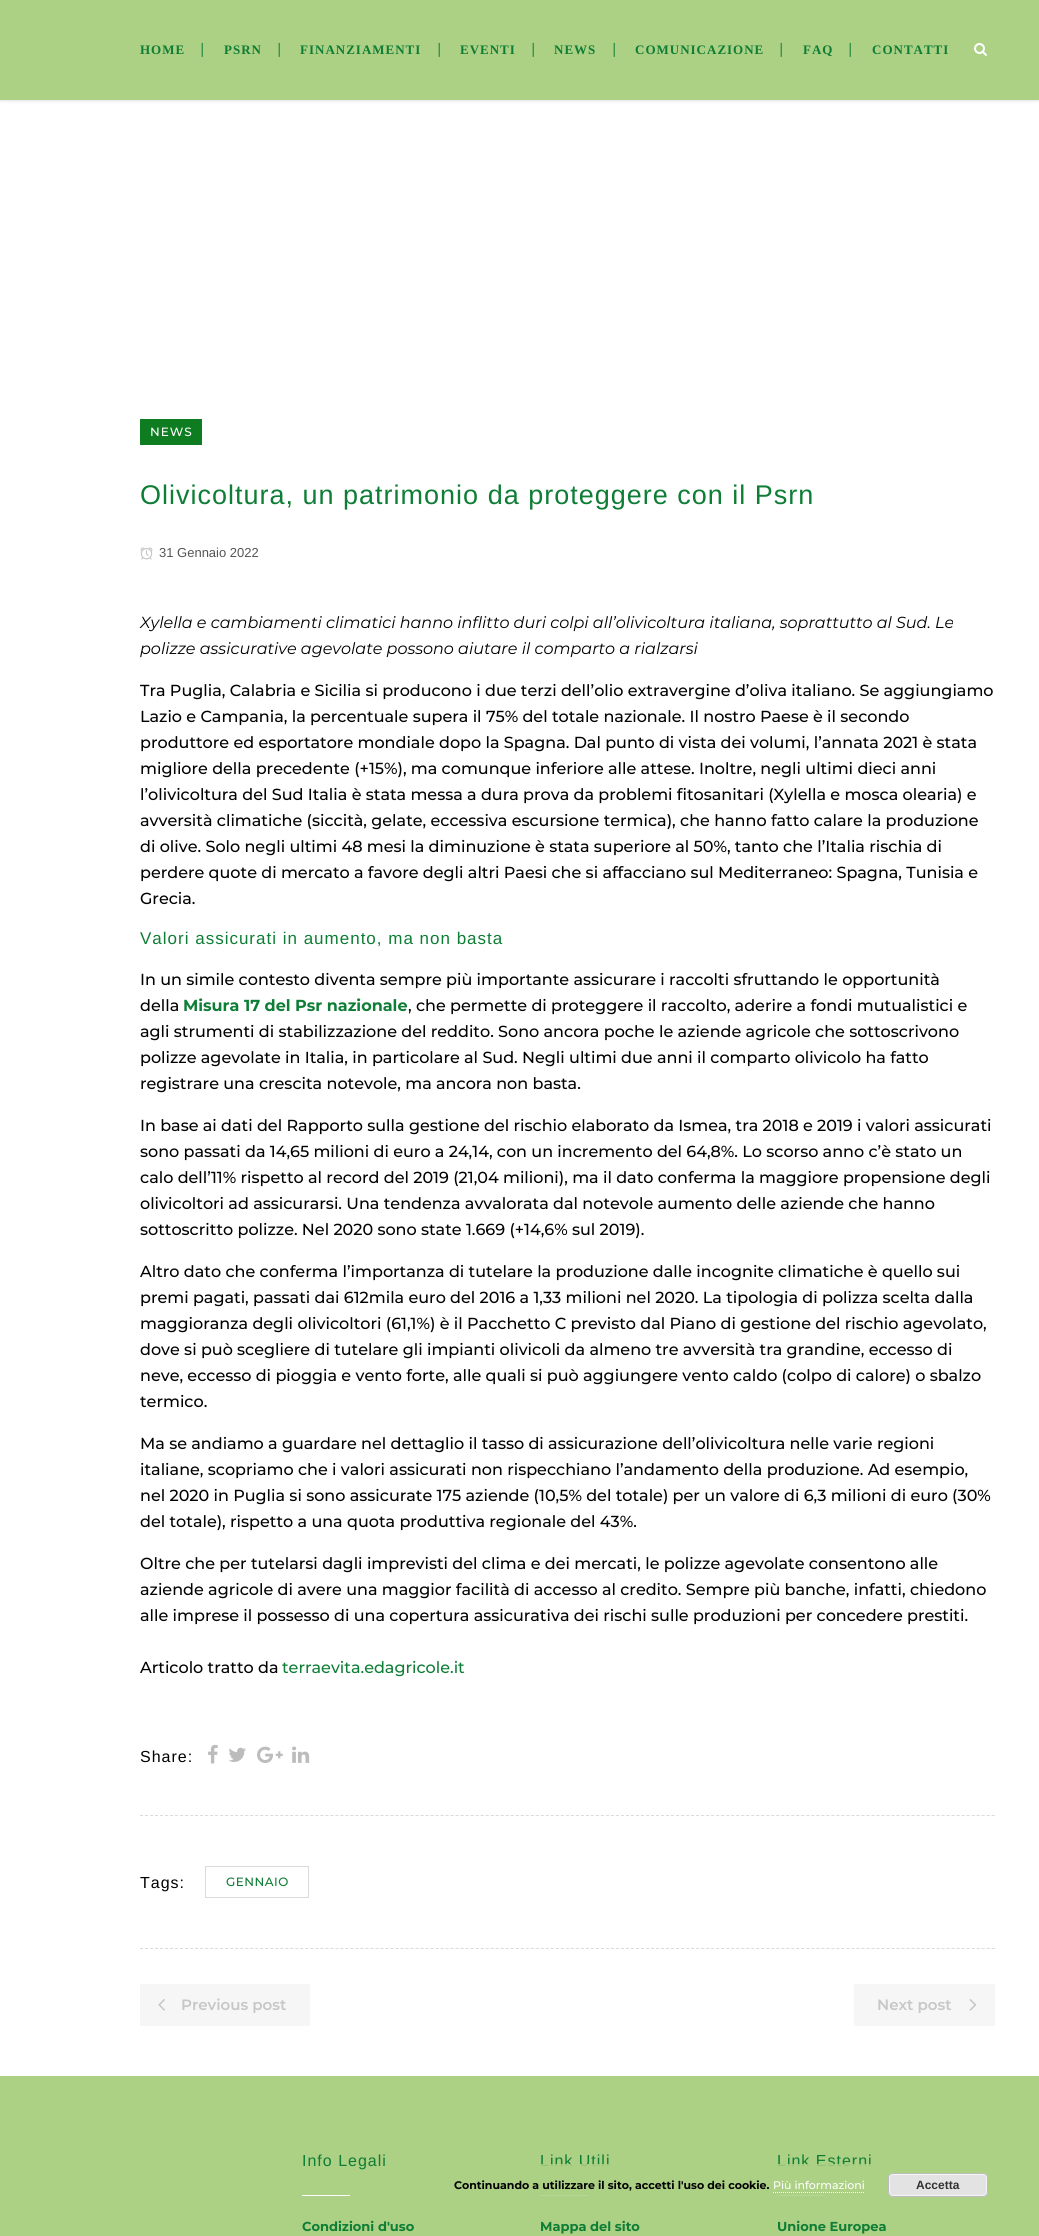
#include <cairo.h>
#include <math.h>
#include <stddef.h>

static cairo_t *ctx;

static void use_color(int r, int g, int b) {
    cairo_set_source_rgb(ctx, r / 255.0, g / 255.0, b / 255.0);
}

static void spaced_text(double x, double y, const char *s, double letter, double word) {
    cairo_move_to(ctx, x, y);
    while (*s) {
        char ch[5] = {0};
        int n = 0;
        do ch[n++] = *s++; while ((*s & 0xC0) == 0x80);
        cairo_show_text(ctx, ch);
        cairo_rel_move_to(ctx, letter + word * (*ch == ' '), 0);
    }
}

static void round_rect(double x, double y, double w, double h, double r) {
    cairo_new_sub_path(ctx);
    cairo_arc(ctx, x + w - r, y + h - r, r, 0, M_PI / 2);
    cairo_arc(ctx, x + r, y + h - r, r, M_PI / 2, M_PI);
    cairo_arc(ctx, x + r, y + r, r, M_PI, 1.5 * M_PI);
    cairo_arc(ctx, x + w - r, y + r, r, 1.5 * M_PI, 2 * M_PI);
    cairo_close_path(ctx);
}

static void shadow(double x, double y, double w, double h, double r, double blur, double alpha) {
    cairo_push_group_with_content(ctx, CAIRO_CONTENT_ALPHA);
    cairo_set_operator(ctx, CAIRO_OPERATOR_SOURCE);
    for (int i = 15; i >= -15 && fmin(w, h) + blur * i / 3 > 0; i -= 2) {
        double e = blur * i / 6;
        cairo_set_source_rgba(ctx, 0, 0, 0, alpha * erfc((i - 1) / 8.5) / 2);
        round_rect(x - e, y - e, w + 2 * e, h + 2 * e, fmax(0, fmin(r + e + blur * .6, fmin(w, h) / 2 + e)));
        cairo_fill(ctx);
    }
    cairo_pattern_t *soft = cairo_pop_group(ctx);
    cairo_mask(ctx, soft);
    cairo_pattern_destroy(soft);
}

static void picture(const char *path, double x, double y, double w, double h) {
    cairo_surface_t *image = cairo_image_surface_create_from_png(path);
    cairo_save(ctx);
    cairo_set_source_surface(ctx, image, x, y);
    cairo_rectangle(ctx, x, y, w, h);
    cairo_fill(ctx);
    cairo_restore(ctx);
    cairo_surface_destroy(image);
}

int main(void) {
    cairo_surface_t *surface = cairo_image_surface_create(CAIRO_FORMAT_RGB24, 1039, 2236);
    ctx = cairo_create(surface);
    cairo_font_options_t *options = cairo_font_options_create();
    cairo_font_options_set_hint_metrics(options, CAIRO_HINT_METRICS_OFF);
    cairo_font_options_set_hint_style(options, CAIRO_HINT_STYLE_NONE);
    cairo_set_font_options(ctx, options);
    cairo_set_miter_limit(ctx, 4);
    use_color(255, 255, 255);
    cairo_paint(ctx);
    use_color(0, 0, 0);
    shadow(0, 1, 1039, 100, 0, 1.5, 0.11);
    use_color(172, 208, 132);
    cairo_rectangle(ctx, 0, 0, 1039, 100);
    cairo_fill(ctx);
    cairo_select_font_face(ctx, "Liberation Serif", CAIRO_FONT_SLANT_NORMAL, CAIRO_FONT_WEIGHT_BOLD);
    cairo_set_font_size(ctx, 13);
    use_color(14, 125, 53);
    spaced_text(140, 54, "HOME", 1, 0);
    cairo_select_font_face(ctx, "Montserrat", CAIRO_FONT_SLANT_NORMAL, CAIRO_FONT_WEIGHT_NORMAL);
    cairo_set_font_size(ctx, 15);
    cairo_move_to(ctx, 200, 54);
    cairo_show_text(ctx, "|");
    cairo_select_font_face(ctx, "Liberation Serif", CAIRO_FONT_SLANT_NORMAL, CAIRO_FONT_WEIGHT_BOLD);
    cairo_set_font_size(ctx, 13);
    spaced_text(224, 54, "PSRN", 1, 0);
    cairo_select_font_face(ctx, "Montserrat", CAIRO_FONT_SLANT_NORMAL, CAIRO_FONT_WEIGHT_NORMAL);
    cairo_set_font_size(ctx, 15);
    cairo_move_to(ctx, 277, 54);
    cairo_show_text(ctx, "|");
    cairo_select_font_face(ctx, "Liberation Serif", CAIRO_FONT_SLANT_NORMAL, CAIRO_FONT_WEIGHT_BOLD);
    cairo_set_font_size(ctx, 13);
    spaced_text(300, 54, "FINANZIAMENTI", 1, 0);
    cairo_select_font_face(ctx, "Montserrat", CAIRO_FONT_SLANT_NORMAL, CAIRO_FONT_WEIGHT_NORMAL);
    cairo_set_font_size(ctx, 15);
    cairo_move_to(ctx, 437, 54);
    cairo_show_text(ctx, "|");
    cairo_select_font_face(ctx, "Liberation Serif", CAIRO_FONT_SLANT_NORMAL, CAIRO_FONT_WEIGHT_BOLD);
    cairo_set_font_size(ctx, 13);
    spaced_text(460, 54, "EVENTI", 1, 0);
    cairo_select_font_face(ctx, "Montserrat", CAIRO_FONT_SLANT_NORMAL, CAIRO_FONT_WEIGHT_NORMAL);
    cairo_set_font_size(ctx, 15);
    cairo_move_to(ctx, 531, 54);
    cairo_show_text(ctx, "|");
    cairo_select_font_face(ctx, "Liberation Serif", CAIRO_FONT_SLANT_NORMAL, CAIRO_FONT_WEIGHT_BOLD);
    cairo_set_font_size(ctx, 13);
    spaced_text(554, 54, "NEWS", 1, 0);
    cairo_select_font_face(ctx, "Montserrat", CAIRO_FONT_SLANT_NORMAL, CAIRO_FONT_WEIGHT_NORMAL);
    cairo_set_font_size(ctx, 15);
    cairo_move_to(ctx, 612, 54);
    cairo_show_text(ctx, "|");
    cairo_select_font_face(ctx, "Liberation Serif", CAIRO_FONT_SLANT_NORMAL, CAIRO_FONT_WEIGHT_BOLD);
    cairo_set_font_size(ctx, 13);
    spaced_text(635, 54, "COMUNICAZIONE", 1, 0);
    cairo_select_font_face(ctx, "Montserrat", CAIRO_FONT_SLANT_NORMAL, CAIRO_FONT_WEIGHT_NORMAL);
    cairo_set_font_size(ctx, 15);
    cairo_move_to(ctx, 779, 54);
    cairo_show_text(ctx, "|");
    cairo_select_font_face(ctx, "Liberation Serif", CAIRO_FONT_SLANT_NORMAL, CAIRO_FONT_WEIGHT_BOLD);
    cairo_set_font_size(ctx, 13);
    spaced_text(803, 54, "FAQ", 1, 0);
    cairo_select_font_face(ctx, "Montserrat", CAIRO_FONT_SLANT_NORMAL, CAIRO_FONT_WEIGHT_NORMAL);
    cairo_set_font_size(ctx, 15);
    cairo_move_to(ctx, 848, 54);
    cairo_show_text(ctx, "|");
    cairo_select_font_face(ctx, "Liberation Serif", CAIRO_FONT_SLANT_NORMAL, CAIRO_FONT_WEIGHT_BOLD);
    cairo_set_font_size(ctx, 13);
    spaced_text(872, 54, "CONTATTI", 1, 0);
    picture("img1.png", 974, 43, 13, 13);
    use_color(14, 125, 33);
    cairo_rectangle(ctx, 140, 419, 62, 26);
    cairo_fill(ctx);
    cairo_select_font_face(ctx, "Montserrat Medium", CAIRO_FONT_SLANT_NORMAL, CAIRO_FONT_WEIGHT_NORMAL);
    cairo_set_font_size(ctx, 12);
    use_color(255, 255, 255);
    spaced_text(150, 436, "NEWS", 1, 0);
    cairo_select_font_face(ctx, "Liberation Sans", CAIRO_FONT_SLANT_NORMAL, CAIRO_FONT_WEIGHT_NORMAL);
    cairo_set_font_size(ctx, 27);
    use_color(14, 125, 53);
    spaced_text(140, 504, "Olivicoltura, un patrimonio da proteggere con il Psrn", 1, 0);
    picture("img2.png", 140, 547, 13, 13);
    cairo_set_font_size(ctx, 13);
    use_color(84, 84, 84);
    cairo_move_to(ctx, 159, 557);
    cairo_show_text(ctx, "31 Gennaio 2022");
    cairo_select_font_face(ctx, "Montserrat", CAIRO_FONT_SLANT_ITALIC, CAIRO_FONT_WEIGHT_NORMAL);
    cairo_set_font_size(ctx, 16);
    use_color(0, 0, 0);
    cairo_move_to(ctx, 140, 628);
    cairo_show_text(ctx, "Xylella e cambiamenti climatici hanno inflitto duri colpi all’olivicoltura italiana, soprattutto al Sud. Le");
    cairo_move_to(ctx, 140, 654);
    cairo_show_text(ctx, "polizze assicurative agevolate possono aiutare il comparto a rialzarsi");
    cairo_select_font_face(ctx, "Montserrat Medium", CAIRO_FONT_SLANT_NORMAL, CAIRO_FONT_WEIGHT_NORMAL);
    cairo_move_to(ctx, 140, 696);
    cairo_show_text(ctx, "Tra Puglia, Calabria e Sicilia si producono i due terzi dell’olio extravergine d’oliva italiano. Se aggiungiamo");
    cairo_move_to(ctx, 140, 722);
    cairo_show_text(ctx, "Lazio e Campania, la percentuale supera il 75% del totale nazionale. Il nostro Paese è il secondo");
    cairo_move_to(ctx, 140, 748);
    cairo_show_text(ctx, "produttore ed esportatore mondiale dopo la Spagna. Dal punto di vista dei volumi, l’annata 2021 è stata");
    cairo_move_to(ctx, 140, 774);
    cairo_show_text(ctx, "migliore della precedente (+15%), ma comunque inferiore alle attese. Inoltre, negli ultimi dieci anni");
    cairo_move_to(ctx, 140, 800);
    cairo_show_text(ctx, "l’olivicoltura del Sud Italia è stata messa a dura prova da problemi fitosanitari (Xylella e mosca olearia) e");
    cairo_move_to(ctx, 140, 826);
    cairo_show_text(ctx, "avversità climatiche (siccità, gelate, eccessiva escursione termica), che hanno fatto calare la produzione");
    cairo_move_to(ctx, 140, 852);
    cairo_show_text(ctx, "di olive. Solo negli ultimi 48 mesi la diminuzione è stata superiore al 50%, tanto che l’Italia rischia di");
    cairo_move_to(ctx, 140, 878);
    cairo_show_text(ctx, "perdere quote di mercato a favore degli altri Paesi che si affacciano sul Mediterraneo: Spagna, Tunisia e");
    cairo_move_to(ctx, 140, 904);
    cairo_show_text(ctx, "Grecia.");
    cairo_select_font_face(ctx, "Liberation Sans", CAIRO_FONT_SLANT_NORMAL, CAIRO_FONT_WEIGHT_NORMAL);
    cairo_set_font_size(ctx, 17);
    use_color(14, 125, 53);
    spaced_text(140, 944, "Valori assicurati in aumento, ma non basta", 1, 0);
    cairo_select_font_face(ctx, "Montserrat Medium", CAIRO_FONT_SLANT_NORMAL, CAIRO_FONT_WEIGHT_NORMAL);
    cairo_set_font_size(ctx, 16);
    use_color(0, 0, 0);
    cairo_move_to(ctx, 140, 985);
    cairo_show_text(ctx, "In un simile contesto diventa sempre più importante assicurare i raccolti sfruttando le opportunità");
    cairo_move_to(ctx, 140, 1011);
    cairo_show_text(ctx, "della");
    cairo_select_font_face(ctx, "Montserrat", CAIRO_FONT_SLANT_NORMAL, CAIRO_FONT_WEIGHT_BOLD);
    use_color(14, 125, 53);
    cairo_move_to(ctx, 183, 1011);
    cairo_show_text(ctx, "Misura 17 del Psr nazionale");
    cairo_select_font_face(ctx, "Montserrat Medium", CAIRO_FONT_SLANT_NORMAL, CAIRO_FONT_WEIGHT_NORMAL);
    use_color(0, 0, 0);
    cairo_move_to(ctx, 408, 1011);
    cairo_show_text(ctx, ", che permette di proteggere il raccolto, aderire a fondi mutualistici e");
    cairo_move_to(ctx, 140, 1037);
    cairo_show_text(ctx, "agli strumenti di stabilizzazione del reddito. Sono ancora poche le aziende agricole che sottoscrivono");
    cairo_move_to(ctx, 140, 1063);
    cairo_show_text(ctx, "polizze agevolate in Italia, in particolare al Sud. Negli ultimi due anni il comparto olivicolo ha fatto");
    cairo_move_to(ctx, 140, 1089);
    cairo_show_text(ctx, "registrare una crescita notevole, ma ancora non basta.");
    cairo_move_to(ctx, 140, 1131);
    cairo_show_text(ctx, "In base ai dati del Rapporto sulla gestione del rischio elaborato da Ismea, tra 2018 e 2019 i valori assicurati");
    cairo_move_to(ctx, 140, 1157);
    cairo_show_text(ctx, "sono passati da 14,65 milioni di euro a 24,14, con un incremento del 64,8%. Lo scorso anno c’è stato un");
    cairo_move_to(ctx, 140, 1183);
    cairo_show_text(ctx, "calo dell’11% rispetto al record del 2019 (21,04 milioni), ma il dato conferma la maggiore propensione degli");
    cairo_move_to(ctx, 140, 1209);
    cairo_show_text(ctx, "olivicoltori ad assicurarsi. Una tendenza avvalorata dal notevole aumento delle aziende che hanno");
    cairo_move_to(ctx, 140, 1235);
    cairo_show_text(ctx, "sottoscritto polizze. Nel 2020 sono state 1.669 (+14,6% sul 2019).");
    cairo_move_to(ctx, 140, 1277);
    cairo_show_text(ctx, "Altro dato che conferma l’importanza di tutelare la produzione dalle incognite climatiche è quello sui");
    cairo_move_to(ctx, 140, 1303);
    cairo_show_text(ctx, "premi pagati, passati dai 612mila euro del 2016 a 1,33 milioni nel 2020. La tipologia di polizza scelta dalla");
    cairo_move_to(ctx, 140, 1329);
    cairo_show_text(ctx, "maggioranza degli olivicoltori (61,1%) è il Pacchetto C previsto dal Piano di gestione del rischio agevolato,");
    cairo_move_to(ctx, 140, 1355);
    cairo_show_text(ctx, "dove si può scegliere di tutelare gli impianti olivicoli da almeno tre avversità tra grandine, eccesso di");
    cairo_move_to(ctx, 140, 1381);
    cairo_show_text(ctx, "neve, eccesso di pioggia e vento forte, alle quali si può aggiungere vento caldo (colpo di calore) o sbalzo");
    cairo_move_to(ctx, 140, 1407);
    cairo_show_text(ctx, "termico.");
    cairo_move_to(ctx, 140, 1449);
    cairo_show_text(ctx, "Ma se andiamo a guardare nel dettaglio il tasso di assicurazione dell’olivicoltura nelle varie regioni");
    cairo_move_to(ctx, 140, 1475);
    cairo_show_text(ctx, "italiane, scopriamo che i valori assicurati non rispecchiano l’andamento della produzione. Ad esempio,");
    cairo_move_to(ctx, 140, 1501);
    cairo_show_text(ctx, "nel 2020 in Puglia si sono assicurate 175 aziende (10,5% del totale) per un valore di 6,3 milioni di euro (30%");
    cairo_move_to(ctx, 140, 1527);
    cairo_show_text(ctx, "del totale), rispetto a una quota produttiva regionale del 43%.");
    cairo_move_to(ctx, 140, 1569);
    cairo_show_text(ctx, "Oltre che per tutelarsi dagli imprevisti del clima e dei mercati, le polizze agevolate consentono alle");
    cairo_move_to(ctx, 140, 1595);
    cairo_show_text(ctx, "aziende agricole di avere una maggior facilità di accesso al credito. Sempre più banche, infatti, chiedono");
    cairo_move_to(ctx, 140, 1621);
    cairo_show_text(ctx, "alle imprese il possesso di una copertura assicurativa dei rischi sulle produzioni per concedere prestiti.");
    cairo_move_to(ctx, 140, 1673);
    cairo_show_text(ctx, "Articolo tratto da");
    use_color(14, 125, 53);
    cairo_move_to(ctx, 282, 1673);
    cairo_show_text(ctx, "terraevita.edagricole.it");
    cairo_new_path(ctx);
    cairo_move_to(ctx, 140, 1815.5);
    cairo_line_to(ctx, 995, 1815.5);
    use_color(219, 219, 219);
    cairo_set_line_width(ctx, 1);
    cairo_set_dash(ctx, (double[]){3, 2.01}, 2, 0);
    cairo_stroke(ctx);
    cairo_select_font_face(ctx, "Liberation Sans", CAIRO_FONT_SLANT_NORMAL, CAIRO_FONT_WEIGHT_NORMAL);
    use_color(0, 0, 0);
    spaced_text(140, 1762, "Share:", 1, 0);
    picture("img3.png", 208, 1744, 10, 20);
    picture("img4.png", 228, 1747, 18, 15);
    picture("img5.png", 257, 1746, 26, 17);
    picture("img6.png", 292, 1746, 18, 17);
    cairo_new_path(ctx);
    cairo_move_to(ctx, 140, 1948.5);
    cairo_line_to(ctx, 995, 1948.5);
    use_color(219, 219, 219);
    cairo_stroke(ctx);
    use_color(0, 0, 0);
    spaced_text(140, 1888, "Tags:", 1, 0);
    cairo_rectangle(ctx, 205.5, 1866.5, 103, 31);
    use_color(219, 219, 219);
    cairo_set_dash(ctx, NULL, 0, 0);
    cairo_stroke(ctx);
    cairo_select_font_face(ctx, "Montserrat Medium", CAIRO_FONT_SLANT_NORMAL, CAIRO_FONT_WEIGHT_NORMAL);
    cairo_set_font_size(ctx, 12);
    use_color(14, 125, 53);
    spaced_text(226, 1886, "GENNAIO", 0.5, 0);
    use_color(246, 246, 246);
    cairo_rectangle(ctx, 140, 1984, 170, 42);
    cairo_fill(ctx);
    picture("img7.png", 158, 1999, 7, 12);
    cairo_select_font_face(ctx, "Montserrat SemiBold", CAIRO_FONT_SLANT_NORMAL, CAIRO_FONT_WEIGHT_NORMAL);
    cairo_set_font_size(ctx, 15);
    use_color(199, 199, 199);
    cairo_move_to(ctx, 181, 2010);
    cairo_show_text(ctx, "Previous post");
    use_color(246, 246, 246);
    cairo_rectangle(ctx, 854, 1984, 141, 42);
    cairo_fill(ctx);
    use_color(199, 199, 199);
    cairo_move_to(ctx, 877, 2010);
    cairo_show_text(ctx, "Next post");
    picture("img8.png", 969, 1999, 7, 12);
    use_color(172, 208, 132);
    cairo_rectangle(ctx, 0, 2076, 1039, 160);
    cairo_fill(ctx);
    cairo_select_font_face(ctx, "Liberation Sans", CAIRO_FONT_SLANT_NORMAL, CAIRO_FONT_WEIGHT_NORMAL);
    cairo_set_font_size(ctx, 16);
    use_color(14, 125, 53);
    spaced_text(302, 2166, "Info Legali", 1, 0);
    use_color(255, 255, 255);
    cairo_rectangle(ctx, 302, 2195, 48, 1);
    cairo_fill(ctx);
    cairo_select_font_face(ctx, "Montserrat", CAIRO_FONT_SLANT_NORMAL, CAIRO_FONT_WEIGHT_BOLD);
    cairo_set_font_size(ctx, 13);
    use_color(14, 125, 53);
    cairo_move_to(ctx, 302, 2231);
    cairo_show_text(ctx, "Condizioni d'uso");
    cairo_select_font_face(ctx, "Liberation Sans", CAIRO_FONT_SLANT_NORMAL, CAIRO_FONT_WEIGHT_NORMAL);
    cairo_set_font_size(ctx, 16);
    spaced_text(540, 2166, "Link Utili", 1, 0);
    use_color(255, 255, 255);
    cairo_rectangle(ctx, 540, 2195, 48, 1);
    cairo_fill(ctx);
    cairo_select_font_face(ctx, "Montserrat", CAIRO_FONT_SLANT_NORMAL, CAIRO_FONT_WEIGHT_BOLD);
    cairo_set_font_size(ctx, 13);
    use_color(14, 125, 53);
    cairo_move_to(ctx, 540, 2231);
    cairo_show_text(ctx, "Mappa del sito");
    cairo_select_font_face(ctx, "Liberation Sans", CAIRO_FONT_SLANT_NORMAL, CAIRO_FONT_WEIGHT_NORMAL);
    cairo_set_font_size(ctx, 16);
    spaced_text(777, 2166, "Link Esterni", 1, 0);
    use_color(255, 255, 255);
    cairo_rectangle(ctx, 777, 2195, 48, 1);
    cairo_fill(ctx);
    cairo_select_font_face(ctx, "Montserrat", CAIRO_FONT_SLANT_NORMAL, CAIRO_FONT_WEIGHT_BOLD);
    cairo_set_font_size(ctx, 13);
    use_color(14, 125, 53);
    cairo_move_to(ctx, 777, 2231);
    cairo_show_text(ctx, "Unione Europea");
    cairo_set_source_rgba(ctx, 0.675, 0.816, 0.518, 0.85);
    round_rect(433, 2164, 576, 42, 5);
    cairo_fill(ctx);
    cairo_set_font_size(ctx, 11);
    use_color(0, 0, 0);
    cairo_move_to(ctx, 454, 2189);
    cairo_show_text(ctx, "Continuando a utilizzare il sito, accetti l'uso dei cookie.");
    cairo_select_font_face(ctx, "Montserrat Medium", CAIRO_FONT_SLANT_NORMAL, CAIRO_FONT_WEIGHT_NORMAL);
    use_color(255, 255, 255);
    cairo_move_to(ctx, 773, 2189);
    cairo_show_text(ctx, "Più informazioni");
    cairo_new_path(ctx);
    cairo_move_to(ctx, 773, 2192.5);
    cairo_line_to(ctx, 865, 2192.5);
    cairo_set_dash(ctx, (double[]){1, 1}, 2, 0);
    cairo_stroke(ctx);
    use_color(227, 227, 227);
    round_rect(888, 2173, 100, 24, 5);
    cairo_fill(ctx);
    round_rect(889.5, 2174.5, 97, 21, 3.5);
    use_color(246, 246, 246);
    cairo_set_dash(ctx, NULL, 0, 0);
    cairo_stroke(ctx);
    round_rect(888.5, 2173.5, 99, 23, 4.5);
    use_color(187, 187, 187);
    cairo_stroke(ctx);
    cairo_select_font_face(ctx, "Liberation Sans", CAIRO_FONT_SLANT_NORMAL, CAIRO_FONT_WEIGHT_BOLD);
    cairo_set_font_size(ctx, 12);
    use_color(51, 51, 51);
    cairo_move_to(ctx, 916, 2189);
    cairo_show_text(ctx, "Accetta");
    cairo_surface_write_to_png(surface, "result.png");
    cairo_font_options_destroy(options);
    cairo_destroy(ctx);
    cairo_surface_destroy(surface);
    return 0;
}
